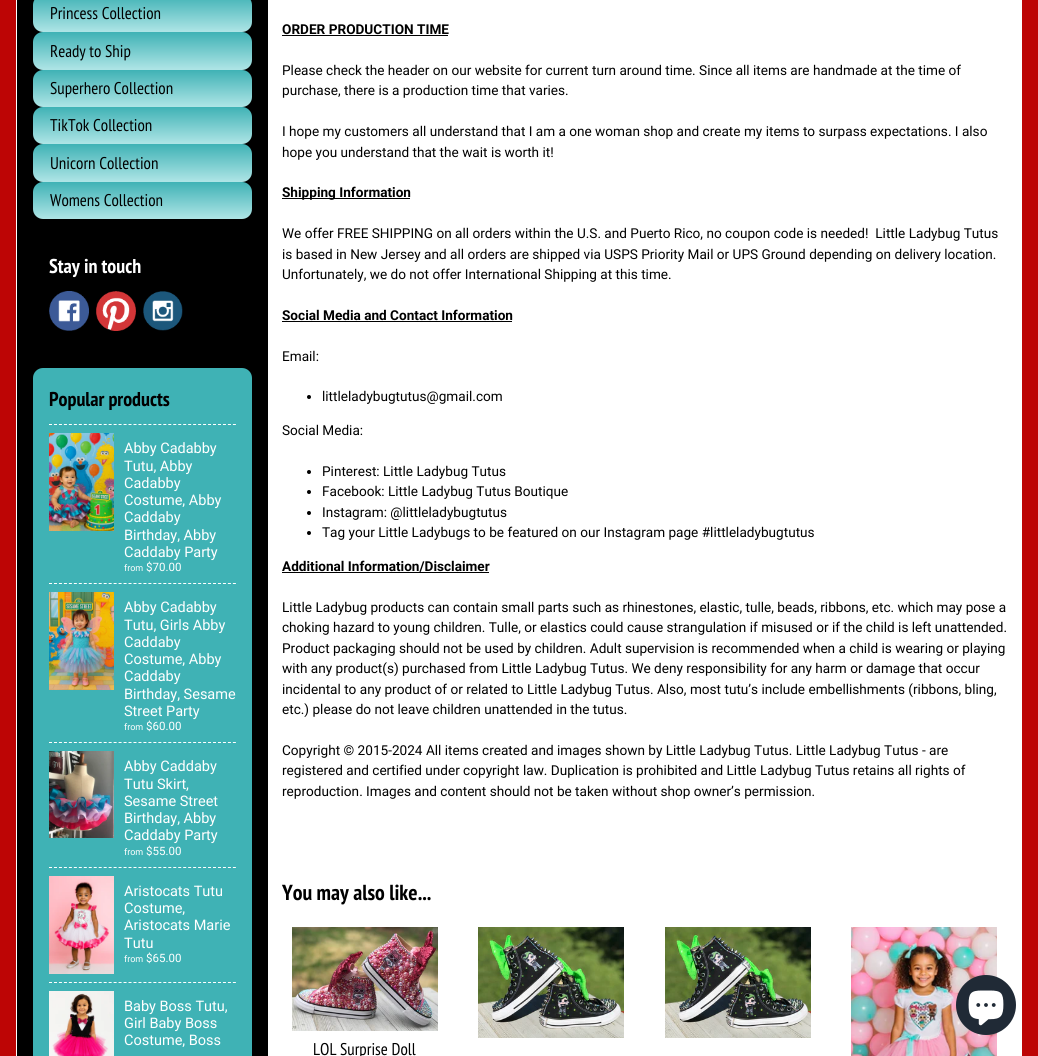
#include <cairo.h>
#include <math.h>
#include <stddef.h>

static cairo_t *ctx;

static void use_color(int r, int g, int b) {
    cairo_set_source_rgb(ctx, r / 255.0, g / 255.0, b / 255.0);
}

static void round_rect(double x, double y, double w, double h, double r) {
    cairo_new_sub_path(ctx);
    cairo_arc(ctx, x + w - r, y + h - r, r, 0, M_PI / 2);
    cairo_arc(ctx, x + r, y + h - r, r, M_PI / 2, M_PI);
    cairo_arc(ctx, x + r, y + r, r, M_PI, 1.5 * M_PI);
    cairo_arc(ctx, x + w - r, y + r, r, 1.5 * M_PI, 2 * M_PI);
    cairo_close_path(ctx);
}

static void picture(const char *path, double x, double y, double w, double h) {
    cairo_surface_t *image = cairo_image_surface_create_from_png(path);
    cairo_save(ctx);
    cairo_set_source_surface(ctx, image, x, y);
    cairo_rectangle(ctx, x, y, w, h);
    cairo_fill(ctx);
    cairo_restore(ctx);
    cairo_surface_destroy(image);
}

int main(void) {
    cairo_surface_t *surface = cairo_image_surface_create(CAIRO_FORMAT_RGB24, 1038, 1056);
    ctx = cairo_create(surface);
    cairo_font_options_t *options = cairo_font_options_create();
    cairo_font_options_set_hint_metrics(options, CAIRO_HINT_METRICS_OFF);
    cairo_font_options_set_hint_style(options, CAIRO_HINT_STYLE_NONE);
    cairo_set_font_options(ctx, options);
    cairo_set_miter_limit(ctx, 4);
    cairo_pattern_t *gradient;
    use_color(189, 5, 5);
    cairo_paint(ctx);
    use_color(255, 255, 255);
    cairo_rectangle(ctx, 16, 0, 1006, 1056);
    cairo_fill(ctx);
    use_color(0, 0, 0);
    cairo_rectangle(ctx, 17, 0, 251, 1056);
    cairo_fill(ctx);
    gradient = cairo_pattern_create_linear(143, -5, 143, 32);
    cairo_pattern_add_color_stop_rgba(gradient, 0, 0.247, 0.698, 0.71, 1);
    cairo_pattern_add_color_stop_rgba(gradient, 1, 0.686, 0.898, 0.902, 1);
    cairo_set_source(ctx, gradient);
    cairo_pattern_destroy(gradient);
    round_rect(33, -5, 219, 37, 10);
    cairo_fill(ctx);
    cairo_select_font_face(ctx, "PT Sans Narrow", CAIRO_FONT_SLANT_NORMAL, CAIRO_FONT_WEIGHT_NORMAL);
    cairo_set_font_size(ctx, 17);
    use_color(0, 0, 0);
    cairo_move_to(ctx, 50, 19);
    cairo_show_text(ctx, "Princess Collection");
    gradient = cairo_pattern_create_linear(143, 32, 143, 70);
    cairo_pattern_add_color_stop_rgba(gradient, 0, 0.247, 0.698, 0.71, 1);
    cairo_pattern_add_color_stop_rgba(gradient, 1, 0.686, 0.898, 0.902, 1);
    cairo_set_source(ctx, gradient);
    cairo_pattern_destroy(gradient);
    round_rect(33, 32, 219, 38, 10);
    cairo_fill(ctx);
    use_color(0, 0, 0);
    cairo_move_to(ctx, 50, 57);
    cairo_show_text(ctx, "Ready to Ship");
    gradient = cairo_pattern_create_linear(143, 70, 143, 107);
    cairo_pattern_add_color_stop_rgba(gradient, 0, 0.247, 0.698, 0.71, 1);
    cairo_pattern_add_color_stop_rgba(gradient, 1, 0.686, 0.898, 0.902, 1);
    cairo_set_source(ctx, gradient);
    cairo_pattern_destroy(gradient);
    round_rect(33, 70, 219, 37, 10);
    cairo_fill(ctx);
    use_color(0, 0, 0);
    cairo_move_to(ctx, 50, 94);
    cairo_show_text(ctx, "Superhero Collection");
    gradient = cairo_pattern_create_linear(143, 107, 143, 144);
    cairo_pattern_add_color_stop_rgba(gradient, 0, 0.247, 0.698, 0.71, 1);
    cairo_pattern_add_color_stop_rgba(gradient, 1, 0.686, 0.898, 0.902, 1);
    cairo_set_source(ctx, gradient);
    cairo_pattern_destroy(gradient);
    round_rect(33, 107, 219, 37, 10);
    cairo_fill(ctx);
    use_color(0, 0, 0);
    cairo_move_to(ctx, 50, 131);
    cairo_show_text(ctx, "TikTok Collection");
    gradient = cairo_pattern_create_linear(143, 144, 143, 182);
    cairo_pattern_add_color_stop_rgba(gradient, 0, 0.247, 0.698, 0.71, 1);
    cairo_pattern_add_color_stop_rgba(gradient, 1, 0.686, 0.898, 0.902, 1);
    cairo_set_source(ctx, gradient);
    cairo_pattern_destroy(gradient);
    round_rect(33, 144, 219, 38, 10);
    cairo_fill(ctx);
    use_color(0, 0, 0);
    cairo_move_to(ctx, 50, 169);
    cairo_show_text(ctx, "Unicorn Collection");
    gradient = cairo_pattern_create_linear(143, 182, 143, 219);
    cairo_pattern_add_color_stop_rgba(gradient, 0, 0.247, 0.698, 0.71, 1);
    cairo_pattern_add_color_stop_rgba(gradient, 1, 0.686, 0.898, 0.902, 1);
    cairo_set_source(ctx, gradient);
    cairo_pattern_destroy(gradient);
    round_rect(33, 182, 219, 37, 10);
    cairo_fill(ctx);
    use_color(0, 0, 0);
    cairo_move_to(ctx, 50, 206);
    cairo_show_text(ctx, "Womens Collection");
    cairo_select_font_face(ctx, "PT Sans Narrow", CAIRO_FONT_SLANT_NORMAL, CAIRO_FONT_WEIGHT_BOLD);
    cairo_set_font_size(ctx, 20);
    use_color(255, 255, 255);
    cairo_move_to(ctx, 49, 273);
    cairo_show_text(ctx, "Stay in touch");
    picture("img1.png", 49, 291, 40, 40);
    picture("img2.png", 96, 291, 40, 40);
    picture("img3.png", 143, 291, 40, 40);
    use_color(63, 178, 181);
    round_rect(33, 368, 219, 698, 10);
    cairo_fill(ctx);
    use_color(0, 0, 0);
    cairo_move_to(ctx, 49, 406);
    cairo_show_text(ctx, "Popular products");
    cairo_new_path(ctx);
    cairo_move_to(ctx, 49, 424.5);
    cairo_line_to(ctx, 236, 424.5);
    use_color(255, 255, 255);
    cairo_set_line_width(ctx, 1);
    cairo_set_dash(ctx, (double[]){3, 1.97}, 2, 0);
    cairo_stroke(ctx);
    picture("img4.png", 49, 433, 65, 98);
    cairo_select_font_face(ctx, "Roboto", CAIRO_FONT_SLANT_NORMAL, CAIRO_FONT_WEIGHT_NORMAL);
    cairo_set_font_size(ctx, 14.5);
    cairo_move_to(ctx, 124, 453);
    cairo_show_text(ctx, "Abby Cadabby");
    cairo_move_to(ctx, 124, 471);
    cairo_show_text(ctx, "Tutu, Abby");
    cairo_move_to(ctx, 124, 488);
    cairo_show_text(ctx, "Cadabby");
    cairo_move_to(ctx, 124, 505);
    cairo_show_text(ctx, "Costume, Abby");
    cairo_move_to(ctx, 124, 522);
    cairo_show_text(ctx, "Caddaby");
    cairo_move_to(ctx, 124, 540);
    cairo_show_text(ctx, "Birthday, Abby");
    cairo_move_to(ctx, 124, 557);
    cairo_show_text(ctx, "Caddaby Party");
    cairo_set_font_size(ctx, 9);
    cairo_move_to(ctx, 124, 571);
    cairo_show_text(ctx, "from");
    cairo_set_font_size(ctx, 11.5);
    cairo_move_to(ctx, 146, 571);
    cairo_show_text(ctx, "$70.00");
    cairo_new_path(ctx);
    cairo_move_to(ctx, 49, 583.5);
    cairo_line_to(ctx, 236, 583.5);
    cairo_stroke(ctx);
    picture("img5.png", 49, 592, 65, 98);
    cairo_set_font_size(ctx, 14.5);
    cairo_move_to(ctx, 124, 612);
    cairo_show_text(ctx, "Abby Cadabby");
    cairo_move_to(ctx, 124, 630);
    cairo_show_text(ctx, "Tutu, Girls Abby");
    cairo_move_to(ctx, 124, 647);
    cairo_show_text(ctx, "Caddaby");
    cairo_move_to(ctx, 124, 664);
    cairo_show_text(ctx, "Costume, Abby");
    cairo_move_to(ctx, 124, 681);
    cairo_show_text(ctx, "Caddaby");
    cairo_move_to(ctx, 124, 699);
    cairo_show_text(ctx, "Birthday, Sesame");
    cairo_move_to(ctx, 124, 716);
    cairo_show_text(ctx, "Street Party");
    cairo_set_font_size(ctx, 9);
    cairo_move_to(ctx, 124, 730);
    cairo_show_text(ctx, "from");
    cairo_set_font_size(ctx, 11.5);
    cairo_move_to(ctx, 146, 730);
    cairo_show_text(ctx, "$60.00");
    cairo_new_path(ctx);
    cairo_move_to(ctx, 49, 742.5);
    cairo_line_to(ctx, 236, 742.5);
    cairo_stroke(ctx);
    picture("img6.png", 49, 751, 65, 87);
    cairo_set_font_size(ctx, 14.5);
    cairo_move_to(ctx, 124, 771);
    cairo_show_text(ctx, "Abby Caddaby");
    cairo_move_to(ctx, 124, 789);
    cairo_show_text(ctx, "Tutu Skirt,");
    cairo_move_to(ctx, 124, 806);
    cairo_show_text(ctx, "Sesame Street");
    cairo_move_to(ctx, 124, 823);
    cairo_show_text(ctx, "Birthday, Abby");
    cairo_move_to(ctx, 124, 840);
    cairo_show_text(ctx, "Caddaby Party");
    cairo_set_font_size(ctx, 9);
    cairo_move_to(ctx, 124, 855);
    cairo_show_text(ctx, "from");
    cairo_set_font_size(ctx, 11.5);
    cairo_move_to(ctx, 146, 855);
    cairo_show_text(ctx, "$55.00");
    cairo_new_path(ctx);
    cairo_move_to(ctx, 49, 867.5);
    cairo_line_to(ctx, 236, 867.5);
    cairo_stroke(ctx);
    picture("img7.png", 49, 876, 65, 98);
    cairo_set_font_size(ctx, 14.5);
    cairo_move_to(ctx, 124, 896);
    cairo_show_text(ctx, "Aristocats Tutu");
    cairo_move_to(ctx, 124, 913);
    cairo_show_text(ctx, "Costume,");
    cairo_move_to(ctx, 124, 930);
    cairo_show_text(ctx, "Aristocats Marie");
    cairo_move_to(ctx, 124, 948);
    cairo_show_text(ctx, "Tutu");
    cairo_set_font_size(ctx, 9);
    cairo_move_to(ctx, 124, 962);
    cairo_show_text(ctx, "from");
    cairo_set_font_size(ctx, 11.5);
    cairo_move_to(ctx, 146, 962);
    cairo_show_text(ctx, "$65.00");
    cairo_new_path(ctx);
    cairo_move_to(ctx, 49, 982.5);
    cairo_line_to(ctx, 236, 982.5);
    cairo_stroke(ctx);
    picture("img8.png", 49, 991, 65, 65);
    cairo_set_font_size(ctx, 14.5);
    cairo_move_to(ctx, 124, 1011);
    cairo_show_text(ctx, "Baby Boss Tutu,");
    cairo_move_to(ctx, 124, 1028);
    cairo_show_text(ctx, "Girl Baby Boss");
    cairo_move_to(ctx, 124, 1045);
    cairo_show_text(ctx, "Costume, Boss");
    cairo_select_font_face(ctx, "Roboto", CAIRO_FONT_SLANT_NORMAL, CAIRO_FONT_WEIGHT_BOLD);
    cairo_set_font_size(ctx, 13.6);
    use_color(0, 0, 0);
    cairo_move_to(ctx, 282, 34);
    cairo_show_text(ctx, "ORDER PRODUCTION TIME");
    cairo_rectangle(ctx, 282, 35, 166, 1);
    cairo_fill(ctx);
    cairo_select_font_face(ctx, "Roboto", CAIRO_FONT_SLANT_NORMAL, CAIRO_FONT_WEIGHT_NORMAL);
    cairo_move_to(ctx, 282, 75);
    cairo_show_text(ctx, "Please check the header on our website for current turn around time. Since all items are handmade at the time of");
    cairo_move_to(ctx, 282, 95);
    cairo_show_text(ctx, "purchase, there is a production time that varies.");
    cairo_move_to(ctx, 282, 136);
    cairo_show_text(ctx, "I hope my customers all understand that I am a one woman shop and create my items to surpass expectations. I also");
    cairo_move_to(ctx, 282, 157);
    cairo_show_text(ctx, "hope you understand that the wait is worth it!");
    cairo_rectangle(ctx, 282, 198, 128, 1);
    cairo_fill(ctx);
    cairo_select_font_face(ctx, "Roboto", CAIRO_FONT_SLANT_NORMAL, CAIRO_FONT_WEIGHT_BOLD);
    cairo_move_to(ctx, 282, 197);
    cairo_show_text(ctx, "Shipping Information");
    cairo_select_font_face(ctx, "Roboto", CAIRO_FONT_SLANT_NORMAL, CAIRO_FONT_WEIGHT_NORMAL);
    cairo_move_to(ctx, 282, 238);
    cairo_show_text(ctx, "We offer FREE SHIPPING on all orders within the U.S. and Puerto Rico, no coupon code is needed!  Little Ladybug Tutus");
    cairo_move_to(ctx, 282, 259);
    cairo_show_text(ctx, "is based in New Jersey and all orders are shipped via USPS Priority Mail or UPS Ground depending on delivery location.");
    cairo_move_to(ctx, 282, 279);
    cairo_show_text(ctx, "Unfortunately, we do not offer International Shipping at this time.");
    cairo_select_font_face(ctx, "Roboto", CAIRO_FONT_SLANT_NORMAL, CAIRO_FONT_WEIGHT_BOLD);
    cairo_move_to(ctx, 282, 320);
    cairo_show_text(ctx, "Social Media and Contact Information");
    cairo_rectangle(ctx, 282, 321, 230, 1);
    cairo_fill(ctx);
    cairo_select_font_face(ctx, "Roboto", CAIRO_FONT_SLANT_NORMAL, CAIRO_FONT_WEIGHT_NORMAL);
    cairo_move_to(ctx, 282, 361);
    cairo_show_text(ctx, "Email:");
    cairo_new_path(ctx);
    cairo_arc(ctx, 309, 397, 2, 0, 2 * M_PI);
    cairo_fill(ctx);
    cairo_move_to(ctx, 322, 401);
    cairo_show_text(ctx, "littleladybugtutus@gmail.com");
    cairo_move_to(ctx, 282, 435);
    cairo_show_text(ctx, "Social Media:");
    cairo_new_path(ctx);
    cairo_arc(ctx, 309, 472, 2, 0, 2 * M_PI);
    cairo_fill(ctx);
    cairo_move_to(ctx, 322, 476);
    cairo_show_text(ctx, "Pinterest: Little Ladybug Tutus");
    cairo_new_path(ctx);
    cairo_arc(ctx, 309, 492, 2, 0, 2 * M_PI);
    cairo_fill(ctx);
    cairo_move_to(ctx, 322, 496);
    cairo_show_text(ctx, "Facebook: Little Ladybug Tutus Boutique");
    cairo_new_path(ctx);
    cairo_arc(ctx, 309, 513, 2, 0, 2 * M_PI);
    cairo_fill(ctx);
    cairo_move_to(ctx, 322, 517);
    cairo_show_text(ctx, "Instagram: @littleladybugtutus");
    cairo_new_path(ctx);
    cairo_arc(ctx, 309, 533, 2, 0, 2 * M_PI);
    cairo_fill(ctx);
    cairo_move_to(ctx, 322, 537);
    cairo_show_text(ctx, "Tag your Little Ladybugs to be featured on our Instagram page #littleladybugtutus");
    cairo_select_font_face(ctx, "Roboto", CAIRO_FONT_SLANT_NORMAL, CAIRO_FONT_WEIGHT_BOLD);
    cairo_move_to(ctx, 282, 571);
    cairo_show_text(ctx, "Additional Information/Disclaimer");
    cairo_rectangle(ctx, 282, 572, 207, 1);
    cairo_fill(ctx);
    cairo_select_font_face(ctx, "Roboto", CAIRO_FONT_SLANT_NORMAL, CAIRO_FONT_WEIGHT_NORMAL);
    cairo_move_to(ctx, 282, 612);
    cairo_show_text(ctx, "Little Ladybug products can contain small parts such as rhinestones, elastic, tulle, beads, ribbons, etc. which may pose a");
    cairo_move_to(ctx, 282, 632);
    cairo_show_text(ctx, "choking hazard to young children. Tulle, or elastics could cause strangulation if misused or if the child is left unattended.");
    cairo_move_to(ctx, 282, 653);
    cairo_show_text(ctx, "Product packaging should not be used by children. Adult supervision is recommended when a child is wearing or playing");
    cairo_move_to(ctx, 282, 673);
    cairo_show_text(ctx, "with any product(s) purchased from Little Ladybug Tutus. We deny responsibility for any harm or damage that occur");
    cairo_move_to(ctx, 282, 694);
    cairo_show_text(ctx, "incidental to any product of or related to Little Ladybug Tutus. Also, most tutu’s include embellishments (ribbons, bling,");
    cairo_move_to(ctx, 282, 714);
    cairo_show_text(ctx, "etc.) please do not leave children unattended in the tutus.");
    cairo_move_to(ctx, 282, 755);
    cairo_show_text(ctx, "Copyright © 2015-2024 All items created and images shown by Little Ladybug Tutus. Little Ladybug Tutus - are");
    cairo_move_to(ctx, 282, 775);
    cairo_show_text(ctx, "registered and certified under copyright law. Duplication is prohibited and Little Ladybug Tutus retains all rights of");
    cairo_move_to(ctx, 282, 796);
    cairo_show_text(ctx, "reproduction. Images and content should not be taken without shop owner’s permission.");
    cairo_select_font_face(ctx, "PT Sans Narrow", CAIRO_FONT_SLANT_NORMAL, CAIRO_FONT_WEIGHT_BOLD);
    cairo_set_font_size(ctx, 21.75);
    cairo_move_to(ctx, 282, 900);
    cairo_show_text(ctx, "You may also like...");
    picture("img9.png", 292, 927, 146, 104);
    cairo_select_font_face(ctx, "PT Sans Narrow", CAIRO_FONT_SLANT_NORMAL, CAIRO_FONT_WEIGHT_NORMAL);
    cairo_set_font_size(ctx, 17);
    cairo_move_to(ctx, 313, 1055);
    cairo_show_text(ctx, "LOL Surprise Doll");
    picture("img10.png", 478, 927, 146, 111);
    picture("img10.png", 665, 927, 146, 111);
    picture("img11.png", 851, 927, 146, 129);
    use_color(32, 42, 54);
    cairo_arc(ctx, 986, 1005, 30, 0, 2 * M_PI);
    cairo_fill(ctx);
    picture("img12.png", 968, 990, 36, 36);
    cairo_surface_write_to_png(surface, "result.png");
    cairo_font_options_destroy(options);
    cairo_destroy(ctx);
    cairo_surface_destroy(surface);
    return 0;
}
